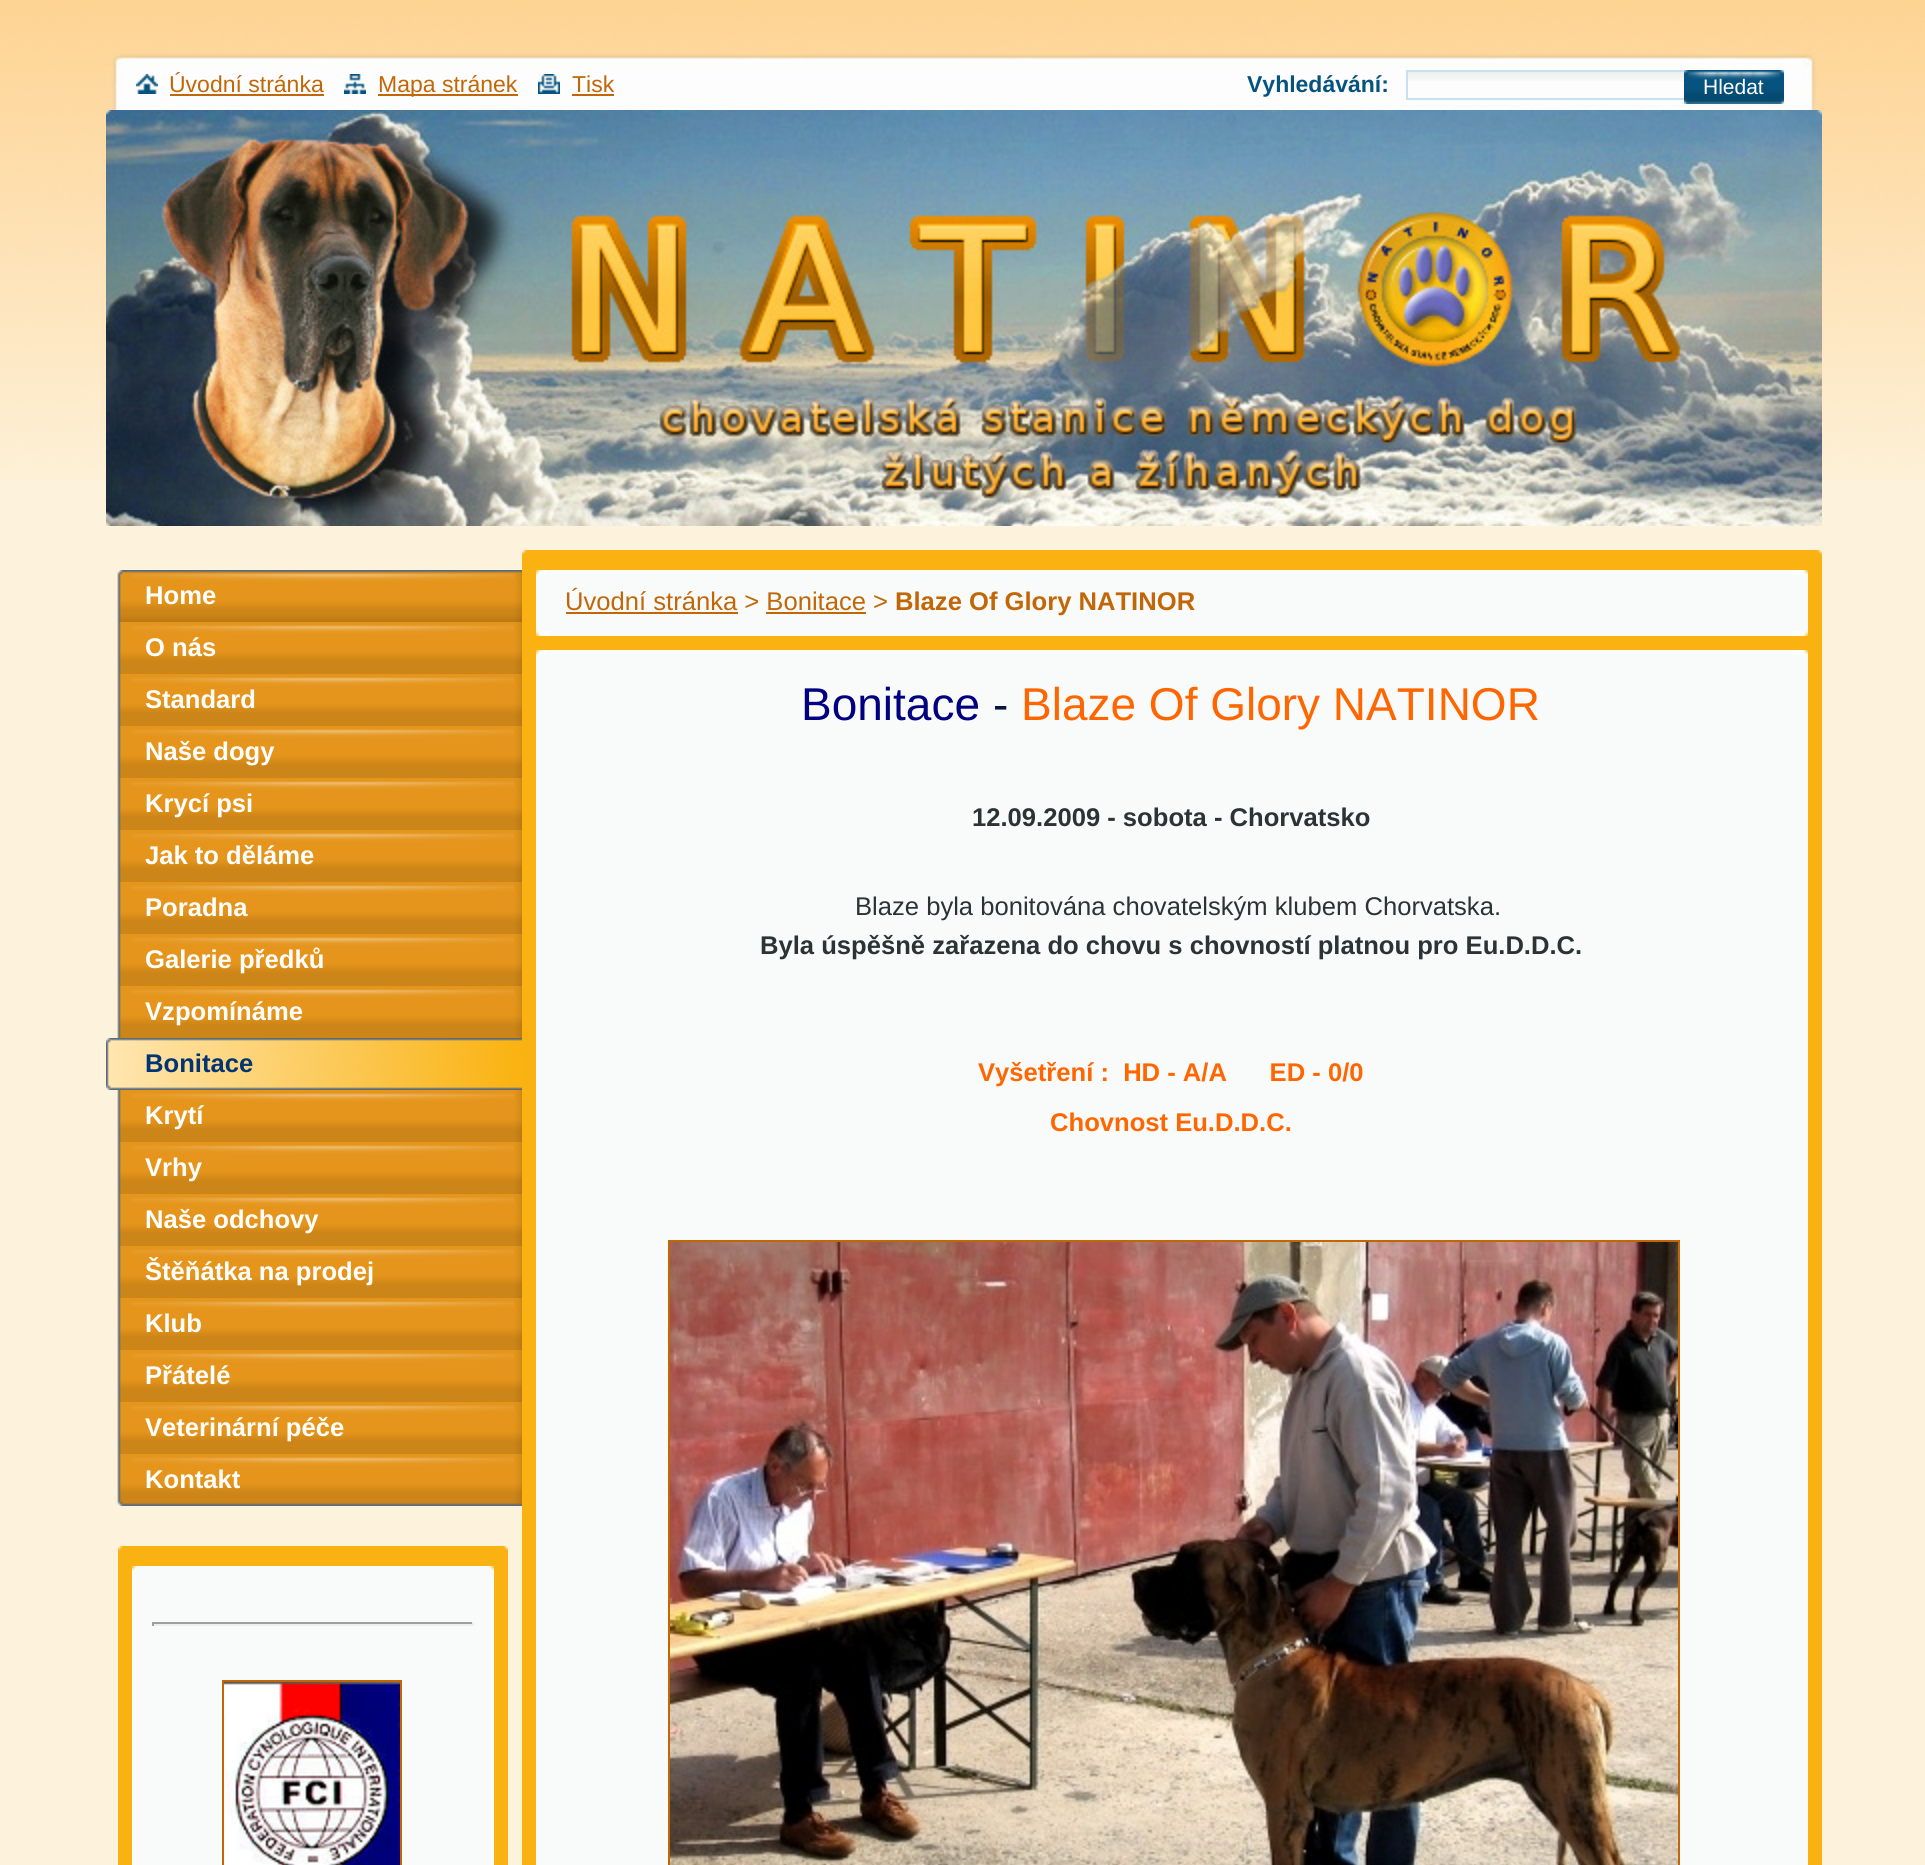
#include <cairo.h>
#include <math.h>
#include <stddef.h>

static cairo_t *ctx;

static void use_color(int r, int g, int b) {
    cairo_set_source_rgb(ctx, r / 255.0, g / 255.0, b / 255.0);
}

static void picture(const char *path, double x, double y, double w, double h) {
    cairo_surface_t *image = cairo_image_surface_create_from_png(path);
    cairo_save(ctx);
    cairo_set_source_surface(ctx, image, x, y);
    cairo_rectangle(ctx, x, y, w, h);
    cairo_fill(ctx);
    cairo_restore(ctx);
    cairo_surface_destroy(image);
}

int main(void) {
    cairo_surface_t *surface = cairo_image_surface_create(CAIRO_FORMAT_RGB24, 1925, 1865);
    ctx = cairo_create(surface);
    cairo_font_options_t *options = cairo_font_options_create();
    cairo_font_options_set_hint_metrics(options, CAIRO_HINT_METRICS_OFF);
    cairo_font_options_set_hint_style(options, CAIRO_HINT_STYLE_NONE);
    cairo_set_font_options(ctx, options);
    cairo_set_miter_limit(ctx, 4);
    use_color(253, 242, 219);
    cairo_paint(ctx);
    picture("img1.png", 0, 0, 1925, 480);
    picture("img2.png", 106, 50, 1712, 60);
    picture("img3.png", 106, 110, 1716, 416);
    picture("img4.png", 136, 74, 22, 20);
    cairo_select_font_face(ctx, "Liberation Sans", CAIRO_FONT_SLANT_NORMAL, CAIRO_FONT_WEIGHT_NORMAL);
    cairo_set_font_size(ctx, 23);
    use_color(194, 103, 7);
    cairo_move_to(ctx, 169, 92);
    cairo_show_text(ctx, "Úvodní stránka");
    cairo_rectangle(ctx, 170, 94, 154, 2);
    cairo_fill(ctx);
    picture("img5.png", 344, 74, 22, 20);
    cairo_rectangle(ctx, 378, 94, 140, 2);
    cairo_fill(ctx);
    cairo_move_to(ctx, 378, 92);
    cairo_show_text(ctx, "Mapa stránek");
    picture("img6.png", 538, 74, 22, 20);
    cairo_move_to(ctx, 572, 92);
    cairo_show_text(ctx, "Tisk");
    cairo_rectangle(ctx, 572, 94, 42, 2);
    cairo_fill(ctx);
    cairo_select_font_face(ctx, "Liberation Sans", CAIRO_FONT_SLANT_NORMAL, CAIRO_FONT_WEIGHT_BOLD);
    use_color(6, 83, 127);
    cairo_move_to(ctx, 1247, 92);
    cairo_show_text(ctx, "Vyhledávání:");
    picture("img7.png", 1408, 72, 276, 9);
    cairo_rectangle(ctx, 1407, 71, 278, 28);
    use_color(200, 225, 238);
    cairo_stroke(ctx);
    picture("img8.png", 1684, 70, 20, 34);
    picture("img9.png", 1704, 70, 60, 34);
    cairo_select_font_face(ctx, "Liberation Sans", CAIRO_FONT_SLANT_NORMAL, CAIRO_FONT_WEIGHT_NORMAL);
    cairo_set_font_size(ctx, 21);
    use_color(255, 255, 255);
    cairo_move_to(ctx, 1703, 94);
    cairo_show_text(ctx, "Hledat");
    picture("img10.png", 1764, 70, 20, 34);
    picture("img11.png", 117, 570, 405, 52);
    cairo_select_font_face(ctx, "Liberation Sans", CAIRO_FONT_SLANT_NORMAL, CAIRO_FONT_WEIGHT_BOLD);
    cairo_set_font_size(ctx, 25.6);
    cairo_move_to(ctx, 145, 604);
    cairo_show_text(ctx, "Home");
    picture("img12.png", 117, 622, 405, 52);
    cairo_move_to(ctx, 145, 656);
    cairo_show_text(ctx, "O nás");
    picture("img12.png", 117, 674, 405, 52);
    cairo_move_to(ctx, 145, 708);
    cairo_show_text(ctx, "Standard");
    picture("img12.png", 117, 726, 405, 52);
    cairo_move_to(ctx, 145, 760);
    cairo_show_text(ctx, "Naše dogy");
    picture("img12.png", 117, 778, 405, 52);
    cairo_move_to(ctx, 145, 812);
    cairo_show_text(ctx, "Krycí psi");
    picture("img12.png", 117, 830, 405, 52);
    cairo_move_to(ctx, 145, 864);
    cairo_show_text(ctx, "Jak to děláme");
    picture("img12.png", 117, 882, 405, 52);
    cairo_move_to(ctx, 145, 916);
    cairo_show_text(ctx, "Poradna");
    picture("img12.png", 117, 934, 405, 52);
    cairo_move_to(ctx, 145, 968);
    cairo_show_text(ctx, "Galerie předků");
    picture("img12.png", 117, 986, 405, 52);
    cairo_move_to(ctx, 145, 1020);
    cairo_show_text(ctx, "Vzpomínáme");
    picture("img13.png", 106, 1038, 416, 52);
    use_color(0, 52, 116);
    cairo_move_to(ctx, 145, 1072);
    cairo_show_text(ctx, "Bonitace");
    picture("img12.png", 117, 1090, 405, 52);
    use_color(255, 255, 255);
    cairo_move_to(ctx, 145, 1124);
    cairo_show_text(ctx, "Krytí");
    picture("img12.png", 117, 1142, 405, 52);
    cairo_move_to(ctx, 145, 1176);
    cairo_show_text(ctx, "Vrhy");
    picture("img12.png", 117, 1194, 405, 52);
    cairo_move_to(ctx, 145, 1228);
    cairo_show_text(ctx, "Naše odchovy");
    picture("img12.png", 117, 1246, 405, 52);
    cairo_move_to(ctx, 145, 1280);
    cairo_show_text(ctx, "Štěňátka na prodej");
    picture("img12.png", 117, 1298, 405, 52);
    cairo_move_to(ctx, 145, 1332);
    cairo_show_text(ctx, "Klub");
    picture("img12.png", 117, 1350, 405, 52);
    cairo_move_to(ctx, 145, 1384);
    cairo_show_text(ctx, "Přátelé");
    picture("img12.png", 117, 1402, 405, 52);
    cairo_move_to(ctx, 145, 1436);
    cairo_show_text(ctx, "Veterinární péče");
    picture("img14.png", 117, 1454, 405, 52);
    cairo_move_to(ctx, 145, 1488);
    cairo_show_text(ctx, "Kontakt");
    use_color(250, 178, 18);
    cairo_rectangle(ctx, 118, 1551, 390, 314);
    cairo_fill(ctx);
    picture("img15.png", 118, 1546, 390, 5);
    use_color(249, 251, 251);
    cairo_rectangle(ctx, 132, 1571, 362, 294);
    cairo_fill(ctx);
    picture("img16.png", 132, 1566, 362, 5);
    use_color(159, 159, 159);
    cairo_rectangle(ctx, 152, 1622, 322, 2);
    cairo_fill(ctx);
    use_color(238, 238, 238);
    cairo_rectangle(ctx, 472, 1622, 2, 4);
    cairo_fill(ctx);
    cairo_rectangle(ctx, 152, 1624, 322, 2);
    cairo_fill(ctx);
    use_color(159, 159, 159);
    cairo_rectangle(ctx, 152, 1622, 2, 4);
    cairo_fill(ctx);
    cairo_rectangle(ctx, 223, 1681, 178, 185);
    use_color(194, 103, 7);
    cairo_stroke(ctx);
    picture("img17.png", 224, 1682, 176, 183);
    use_color(250, 178, 18);
    cairo_rectangle(ctx, 522, 555, 1300, 1310);
    cairo_fill(ctx);
    picture("img18.png", 522, 550, 1300, 5);
    use_color(249, 251, 251);
    cairo_rectangle(ctx, 536, 575, 1272, 56);
    cairo_fill(ctx);
    picture("img19.png", 536, 631, 1272, 5);
    picture("img20.png", 536, 570, 1272, 5);
    cairo_select_font_face(ctx, "Liberation Sans", CAIRO_FONT_SLANT_NORMAL, CAIRO_FONT_WEIGHT_NORMAL);
    use_color(194, 103, 7);
    cairo_move_to(ctx, 565, 610);
    cairo_show_text(ctx, "Úvodní stránka > Bonitace >");
    cairo_rectangle(ctx, 566, 612, 172, 2);
    cairo_fill(ctx);
    cairo_select_font_face(ctx, "Liberation Sans", CAIRO_FONT_SLANT_NORMAL, CAIRO_FONT_WEIGHT_BOLD);
    cairo_move_to(ctx, 895, 610);
    cairo_show_text(ctx, "Blaze Of Glory NATINOR");
    cairo_rectangle(ctx, 766, 612, 100, 2);
    cairo_fill(ctx);
    use_color(249, 251, 251);
    cairo_rectangle(ctx, 536, 655, 1272, 1210);
    cairo_fill(ctx);
    picture("img20.png", 536, 650, 1272, 5);
    cairo_select_font_face(ctx, "Liberation Sans", CAIRO_FONT_SLANT_NORMAL, CAIRO_FONT_WEIGHT_NORMAL);
    cairo_set_font_size(ctx, 46);
    use_color(0, 0, 128);
    cairo_move_to(ctx, 801, 720);
    cairo_show_text(ctx, "Bonitace");
    use_color(9, 22, 57);
    cairo_move_to(ctx, 993, 720);
    cairo_show_text(ctx, "-");
    use_color(255, 102, 0);
    cairo_move_to(ctx, 1021, 720);
    cairo_show_text(ctx, "Blaze Of Glory NATINOR");
    cairo_select_font_face(ctx, "Liberation Sans", CAIRO_FONT_SLANT_NORMAL, CAIRO_FONT_WEIGHT_BOLD);
    cairo_set_font_size(ctx, 25.6);
    use_color(43, 51, 52);
    cairo_move_to(ctx, 972, 826);
    cairo_show_text(ctx, "12.09.2009 - sobota - Chorvatsko");
    cairo_select_font_face(ctx, "Liberation Sans", CAIRO_FONT_SLANT_NORMAL, CAIRO_FONT_WEIGHT_NORMAL);
    cairo_move_to(ctx, 855, 915);
    cairo_show_text(ctx, "Blaze byla bonitována chovatelským klubem Chorvatska.");
    cairo_select_font_face(ctx, "Liberation Sans", CAIRO_FONT_SLANT_NORMAL, CAIRO_FONT_WEIGHT_BOLD);
    cairo_move_to(ctx, 760, 954);
    cairo_show_text(ctx, "Byla úspěšně zařazena do chovu s chovností platnou pro Eu.D.D.C.");
    use_color(255, 102, 0);
    cairo_move_to(ctx, 978, 1081);
    cairo_show_text(ctx, "Vyšetření :  HD - A/A      ED - 0/0");
    cairo_move_to(ctx, 1050, 1131);
    cairo_show_text(ctx, "Chovnost Eu.D.D.C.");
    cairo_rectangle(ctx, 669, 1241, 1010, 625);
    use_color(194, 103, 7);
    cairo_stroke(ctx);
    picture("img21.png", 670, 1242, 1008, 623);
    cairo_surface_write_to_png(surface, "result.png");
    cairo_font_options_destroy(options);
    cairo_destroy(ctx);
    cairo_surface_destroy(surface);
    return 0;
}
